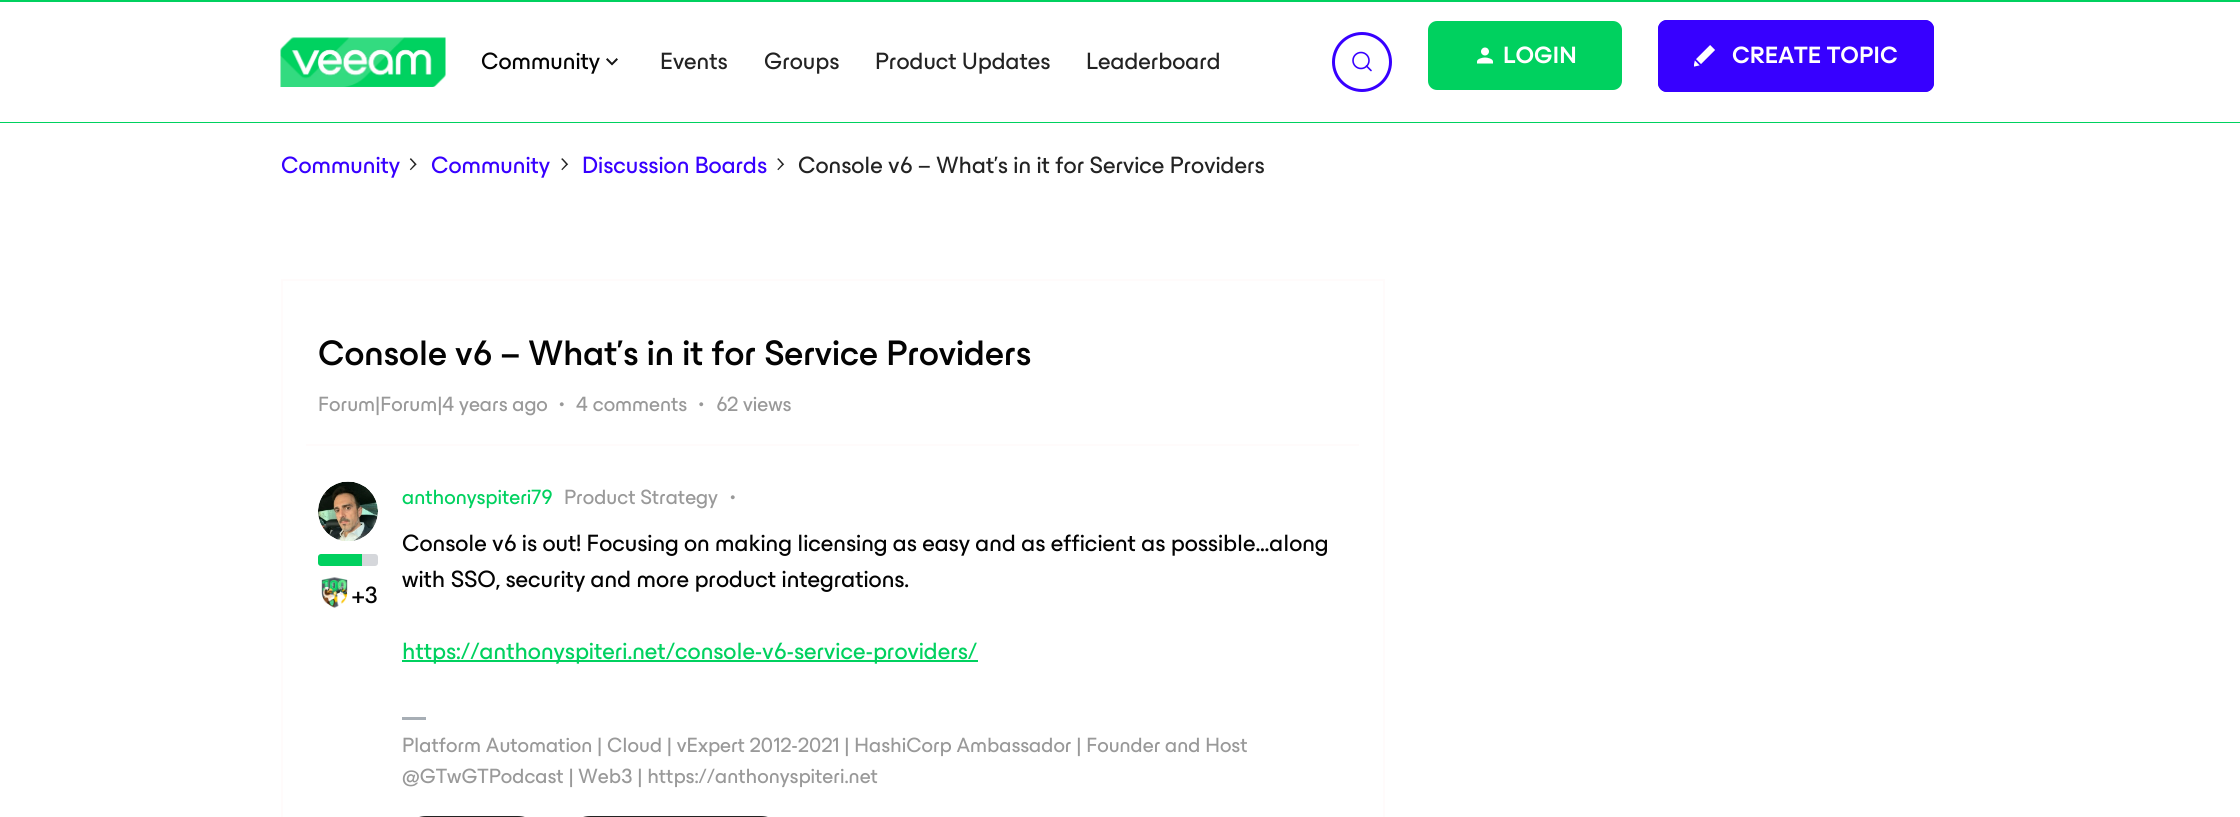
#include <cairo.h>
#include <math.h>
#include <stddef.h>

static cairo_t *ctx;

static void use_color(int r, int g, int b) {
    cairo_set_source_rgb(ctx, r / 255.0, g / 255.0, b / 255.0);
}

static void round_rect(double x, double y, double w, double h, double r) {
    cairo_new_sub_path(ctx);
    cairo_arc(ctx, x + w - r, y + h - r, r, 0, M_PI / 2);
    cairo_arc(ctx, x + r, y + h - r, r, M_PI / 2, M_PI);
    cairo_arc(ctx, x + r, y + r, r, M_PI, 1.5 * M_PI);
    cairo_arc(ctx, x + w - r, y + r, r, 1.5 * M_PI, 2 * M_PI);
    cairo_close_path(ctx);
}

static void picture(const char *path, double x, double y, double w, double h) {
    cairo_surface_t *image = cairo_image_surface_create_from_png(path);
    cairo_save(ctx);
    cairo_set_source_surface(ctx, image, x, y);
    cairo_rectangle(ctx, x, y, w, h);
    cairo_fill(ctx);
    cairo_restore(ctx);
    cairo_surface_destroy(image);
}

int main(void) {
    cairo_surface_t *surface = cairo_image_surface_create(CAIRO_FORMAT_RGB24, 2240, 817);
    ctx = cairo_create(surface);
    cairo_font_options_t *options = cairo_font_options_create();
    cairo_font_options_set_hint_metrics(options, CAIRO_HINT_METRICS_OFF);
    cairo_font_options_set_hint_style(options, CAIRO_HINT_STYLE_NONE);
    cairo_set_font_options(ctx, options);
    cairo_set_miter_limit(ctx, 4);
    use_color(255, 255, 255);
    cairo_paint(ctx);
    use_color(0, 209, 95);
    cairo_rectangle(ctx, 0, 0, 2240, 2);
    cairo_fill(ctx);
    cairo_rectangle(ctx, 0, 122, 2240, 1);
    cairo_fill(ctx);
    picture("img1.png", 280, 37, 166, 50);
    cairo_select_font_face(ctx, "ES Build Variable", CAIRO_FONT_SLANT_NORMAL, CAIRO_FONT_WEIGHT_NORMAL);
    cairo_set_font_size(ctx, 24);
    use_color(3, 3, 3);
    cairo_move_to(ctx, 481, 69);
    cairo_show_text(ctx, "Community");
    picture("img2.png", 606, 58, 12, 8);
    use_color(35, 35, 35);
    cairo_move_to(ctx, 660, 69);
    cairo_show_text(ctx, "Events");
    cairo_move_to(ctx, 764, 69);
    cairo_show_text(ctx, "Groups");
    cairo_move_to(ctx, 875, 69);
    cairo_show_text(ctx, "Product Updates");
    cairo_move_to(ctx, 1086, 69);
    cairo_show_text(ctx, "Leaderboard");
    cairo_new_path(ctx);
    cairo_arc(ctx, 1362, 62, 28.5, 0, 2 * M_PI);
    use_color(55, 0, 255);
    cairo_set_line_width(ctx, 3);
    cairo_stroke(ctx);
    cairo_arc(ctx, 1361, 60.5, 8, 0, 2 * M_PI);
    cairo_set_line_width(ctx, 1.6);
    cairo_stroke(ctx);
    cairo_new_path(ctx);
    cairo_move_to(ctx, 1366.5, 66);
    cairo_line_to(ctx, 1371, 70.5);
    cairo_set_line_cap(ctx, CAIRO_LINE_CAP_ROUND);
    cairo_stroke(ctx);
    use_color(0, 209, 95);
    round_rect(1428, 21, 194, 69, 9);
    cairo_fill(ctx);
    picture("img3.png", 1477, 47, 16, 17);
    cairo_select_font_face(ctx, "ES Build Variable SemiBold", CAIRO_FONT_SLANT_NORMAL, CAIRO_FONT_WEIGHT_NORMAL);
    use_color(255, 255, 255);
    cairo_move_to(ctx, 1503, 63);
    cairo_show_text(ctx, "LOGIN");
    use_color(55, 0, 255);
    round_rect(1658, 20, 276, 72, 9);
    cairo_fill(ctx);
    picture("img4.png", 1694, 45, 21, 22);
    round_rect(1659.5, 21.5, 273, 69, 7.5);
    cairo_set_line_width(ctx, 3);
    cairo_set_line_cap(ctx, CAIRO_LINE_CAP_BUTT);
    cairo_stroke(ctx);
    use_color(255, 255, 255);
    cairo_move_to(ctx, 1732, 63);
    cairo_show_text(ctx, "CREATE TOPIC");
    cairo_select_font_face(ctx, "ES Build Variable", CAIRO_FONT_SLANT_NORMAL, CAIRO_FONT_WEIGHT_NORMAL);
    use_color(55, 0, 255);
    cairo_move_to(ctx, 281, 173);
    cairo_show_text(ctx, "Community");
    picture("img5.png", 409, 158, 8, 13);
    cairo_move_to(ctx, 431, 173);
    cairo_show_text(ctx, "Community");
    picture("img6.png", 561, 158, 8, 13);
    cairo_move_to(ctx, 582, 173);
    cairo_show_text(ctx, "Discussion Boards");
    picture("img6.png", 777, 158, 8, 13);
    use_color(35, 35, 35);
    cairo_move_to(ctx, 798, 173);
    cairo_show_text(ctx, "Console v6 – What’s in it for Service Providers");
    cairo_rectangle(ctx, 282, 280, 1102, 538);
    use_color(255, 251, 251);
    cairo_set_line_width(ctx, 2);
    cairo_stroke(ctx);
    cairo_select_font_face(ctx, "ES Build Variable Medium", CAIRO_FONT_SLANT_NORMAL, CAIRO_FONT_WEIGHT_NORMAL);
    cairo_set_font_size(ctx, 36);
    use_color(3, 3, 3);
    cairo_move_to(ctx, 318, 365);
    cairo_show_text(ctx, "Console v6 – What’s in it for Service Providers");
    cairo_select_font_face(ctx, "ES Build Variable", CAIRO_FONT_SLANT_NORMAL, CAIRO_FONT_WEIGHT_NORMAL);
    cairo_set_font_size(ctx, 21);
    use_color(153, 153, 153);
    cairo_move_to(ctx, 318, 411);
    cairo_show_text(ctx, "Forum|Forum|4 years ago");
    picture("img7.png", 559, 402, 5, 5);
    cairo_move_to(ctx, 576, 411);
    cairo_show_text(ctx, "4 comments");
    picture("img8.png", 699, 402, 5, 5);
    cairo_move_to(ctx, 716, 411);
    cairo_show_text(ctx, "62 views");
    use_color(255, 251, 251);
    cairo_rectangle(ctx, 306, 444, 1053, 2);
    cairo_fill(ctx);
    use_color(0, 209, 95);
    cairo_move_to(ctx, 402, 504);
    cairo_show_text(ctx, "anthonyspiteri79");
    use_color(153, 153, 153);
    cairo_move_to(ctx, 564, 504);
    cairo_show_text(ctx, "Product Strategy");
    picture("img7.png", 730, 495, 5, 5);
    picture("img9.png", 318, 481, 60, 60);
    use_color(213, 215, 219);
    round_rect(318, 554, 60, 12, 3);
    cairo_fill(ctx);
    use_color(0, 209, 95);
    cairo_new_path(ctx);
    cairo_move_to(ctx, 321, 554);
    cairo_line_to(ctx, 362, 554);
    cairo_line_to(ctx, 362, 566);
    cairo_line_to(ctx, 321, 566);
    cairo_curve_to(ctx, 319.5, 566, 318, 564.5, 318, 563);
    cairo_line_to(ctx, 318, 557);
    cairo_curve_to(ctx, 318, 555.5, 319.5, 554, 321, 554);
    cairo_close_path(ctx);
    cairo_fill(ctx);
    picture("img10.png", 321, 577, 27, 31);
    cairo_set_font_size(ctx, 24);
    use_color(3, 3, 3);
    cairo_move_to(ctx, 352, 603);
    cairo_show_text(ctx, "+3");
    cairo_move_to(ctx, 402, 551);
    cairo_show_text(ctx, "Console v6 is out! Focusing on making licensing as easy and as efficient as possible…along");
    cairo_move_to(ctx, 402, 587);
    cairo_show_text(ctx, "with SSO, security and more product integrations.");
    use_color(0, 209, 95);
    cairo_rectangle(ctx, 402, 660, 576, 2);
    cairo_fill(ctx);
    cairo_move_to(ctx, 402, 659);
    cairo_show_text(ctx, "https://anthonyspiteri.net/console-v6-service-providers/");
    use_color(167, 174, 181);
    cairo_rectangle(ctx, 402, 717, 24, 3);
    cairo_fill(ctx);
    cairo_set_font_size(ctx, 21);
    use_color(153, 153, 153);
    cairo_move_to(ctx, 402, 752);
    cairo_show_text(ctx, "Platform Automation | Cloud | vExpert 2012-2021 | HashiCorp Ambassador | Founder and Host");
    cairo_move_to(ctx, 402, 783);
    cairo_show_text(ctx, "@GTwGTPodcast | Web3 | https://anthonyspiteri.net");
    round_rect(403, 817, 138, 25, 23);
    use_color(35, 35, 35);
    cairo_stroke(ctx);
    round_rect(567, 817, 217, 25, 23);
    cairo_stroke(ctx);
    cairo_surface_write_to_png(surface, "result.png");
    cairo_font_options_destroy(options);
    cairo_destroy(ctx);
    cairo_surface_destroy(surface);
    return 0;
}
